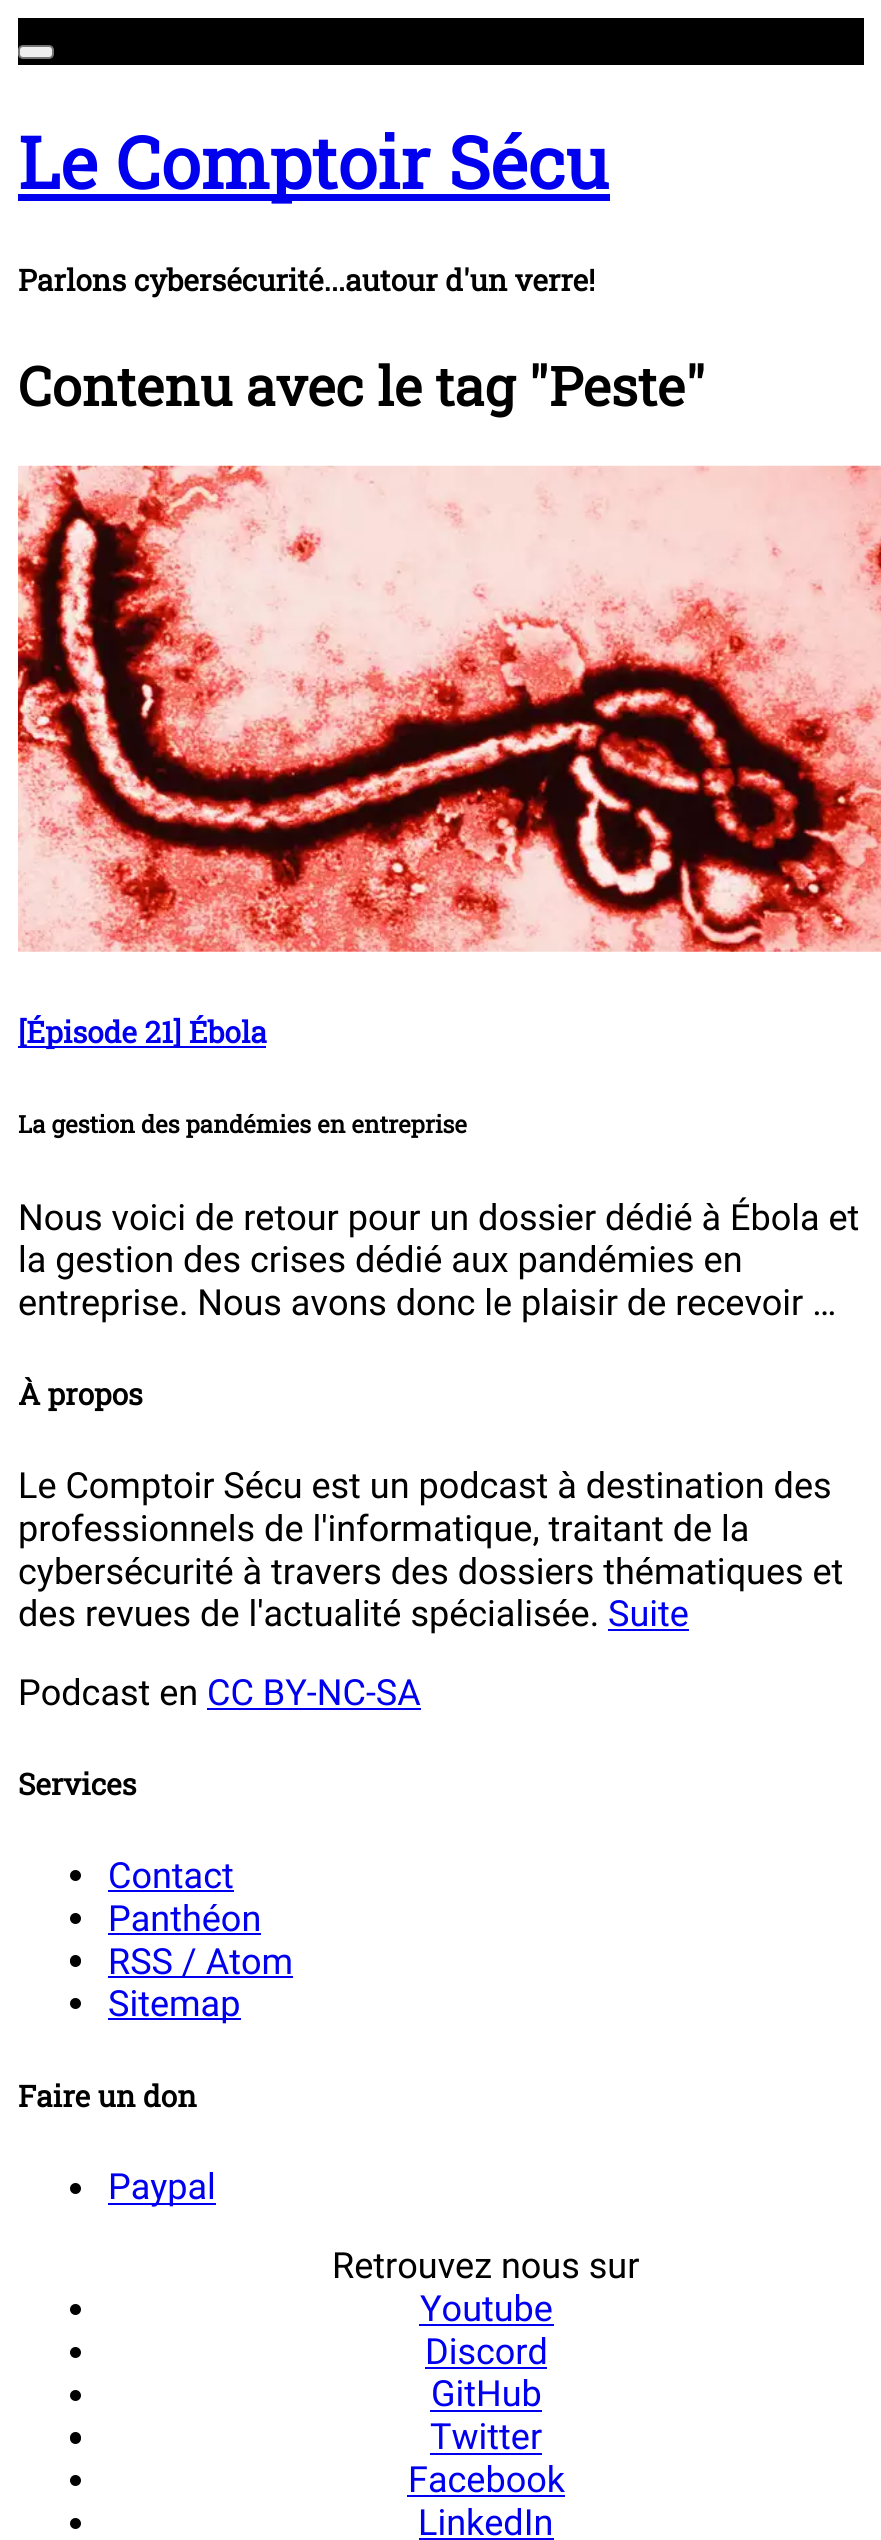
#include <cairo.h>
#include <math.h>
#include <stddef.h>

static cairo_t *ctx;

static void use_color(int r, int g, int b) {
    cairo_set_source_rgb(ctx, r / 255.0, g / 255.0, b / 255.0);
}

static void round_rect(double x, double y, double w, double h, double r) {
    cairo_new_sub_path(ctx);
    cairo_arc(ctx, x + w - r, y + h - r, r, 0, M_PI / 2);
    cairo_arc(ctx, x + r, y + h - r, r, M_PI / 2, M_PI);
    cairo_arc(ctx, x + r, y + r, r, M_PI, 1.5 * M_PI);
    cairo_arc(ctx, x + w - r, y + r, r, 1.5 * M_PI, 2 * M_PI);
    cairo_close_path(ctx);
}

static void picture(const char *path, double x, double y, double w, double h) {
    cairo_surface_t *image = cairo_image_surface_create_from_png(path);
    cairo_save(ctx);
    cairo_set_source_surface(ctx, image, x, y);
    cairo_rectangle(ctx, x, y, w, h);
    cairo_fill(ctx);
    cairo_restore(ctx);
    cairo_surface_destroy(image);
}

int main(void) {
    cairo_surface_t *surface = cairo_image_surface_create(CAIRO_FORMAT_RGB24, 881, 2540);
    ctx = cairo_create(surface);
    cairo_font_options_t *options = cairo_font_options_create();
    cairo_font_options_set_hint_metrics(options, CAIRO_HINT_METRICS_OFF);
    cairo_font_options_set_hint_style(options, CAIRO_HINT_STYLE_NONE);
    cairo_set_font_options(ctx, options);
    cairo_set_miter_limit(ctx, 4);
    use_color(255, 255, 255);
    cairo_paint(ctx);
    use_color(0, 0, 0);
    cairo_rectangle(ctx, 18, 18, 846, 47);
    cairo_fill(ctx);
    use_color(239, 239, 239);
    round_rect(19, 46, 34, 12, 4);
    cairo_fill_preserve(ctx);
    use_color(118, 118, 118);
    cairo_stroke(ctx);
    use_color(0, 0, 238);
    cairo_rectangle(ctx, 18, 194, 592, 7);
    cairo_fill(ctx);
    cairo_select_font_face(ctx, "Roboto Slab", CAIRO_FONT_SLANT_NORMAL, CAIRO_FONT_WEIGHT_BOLD);
    cairo_set_font_size(ctx, 72);
    cairo_move_to(ctx, 18, 189);
    cairo_show_text(ctx, "Le Comptoir Sécu");
    cairo_set_font_size(ctx, 29.9);
    use_color(0, 0, 0);
    cairo_move_to(ctx, 18, 291);
    cairo_show_text(ctx, "Parlons cybersécurité...autour d'un verre!");
    cairo_set_font_size(ctx, 54);
    cairo_move_to(ctx, 18, 406);
    cairo_show_text(ctx, "Contenu avec le tag \"Peste\"");
    picture("img1.png", 18, 465, 863, 487);
    use_color(0, 0, 238);
    cairo_rectangle(ctx, 18, 1046, 248, 2);
    cairo_fill(ctx);
    cairo_set_font_size(ctx, 29.9);
    cairo_move_to(ctx, 18, 1043);
    cairo_show_text(ctx, "[Épisode 21] Ébola");
    cairo_set_font_size(ctx, 24.1);
    use_color(0, 0, 0);
    cairo_move_to(ctx, 18, 1133);
    cairo_show_text(ctx, "La gestion des pandémies en entreprise");
    cairo_select_font_face(ctx, "Roboto", CAIRO_FONT_SLANT_NORMAL, CAIRO_FONT_WEIGHT_NORMAL);
    cairo_set_font_size(ctx, 36);
    cairo_move_to(ctx, 18, 1230);
    cairo_show_text(ctx, "Nous voici de retour pour un dossier dédié à Ébola et");
    cairo_move_to(ctx, 18, 1272);
    cairo_show_text(ctx, "la gestion des crises dédié aux pandémies en");
    cairo_move_to(ctx, 18, 1315);
    cairo_show_text(ctx, "entreprise. Nous avons donc le plaisir de recevoir …");
    cairo_select_font_face(ctx, "Roboto Slab", CAIRO_FONT_SLANT_NORMAL, CAIRO_FONT_WEIGHT_BOLD);
    cairo_set_font_size(ctx, 29.9);
    cairo_move_to(ctx, 18, 1405);
    cairo_show_text(ctx, "À propos");
    cairo_select_font_face(ctx, "Roboto", CAIRO_FONT_SLANT_NORMAL, CAIRO_FONT_WEIGHT_NORMAL);
    cairo_set_font_size(ctx, 36);
    cairo_move_to(ctx, 18, 1498);
    cairo_show_text(ctx, "Le Comptoir Sécu est un podcast à destination des");
    cairo_move_to(ctx, 18, 1541);
    cairo_show_text(ctx, "professionnels de l'informatique, traitant de la");
    cairo_move_to(ctx, 18, 1584);
    cairo_show_text(ctx, "cybersécurité à travers des dossiers thématiques et");
    cairo_move_to(ctx, 18, 1626);
    cairo_show_text(ctx, "des revues de l'actualité spécialisée.");
    use_color(0, 0, 238);
    cairo_move_to(ctx, 608, 1626);
    cairo_show_text(ctx, "Suite");
    cairo_rectangle(ctx, 608, 1629, 81, 2);
    cairo_fill(ctx);
    use_color(0, 0, 0);
    cairo_move_to(ctx, 18, 1705);
    cairo_show_text(ctx, "Podcast en");
    use_color(0, 0, 238);
    cairo_move_to(ctx, 207, 1705);
    cairo_show_text(ctx, "CC BY-NC-SA");
    cairo_rectangle(ctx, 207, 1708, 214, 2);
    cairo_fill(ctx);
    cairo_select_font_face(ctx, "Roboto Slab", CAIRO_FONT_SLANT_NORMAL, CAIRO_FONT_WEIGHT_BOLD);
    cairo_set_font_size(ctx, 29.9);
    use_color(0, 0, 0);
    cairo_move_to(ctx, 18, 1795);
    cairo_show_text(ctx, "Services");
    cairo_new_path(ctx);
    cairo_arc(ctx, 75.5, 1875.5, 5.5, 0, 2 * M_PI);
    cairo_fill(ctx);
    cairo_select_font_face(ctx, "Roboto", CAIRO_FONT_SLANT_NORMAL, CAIRO_FONT_WEIGHT_NORMAL);
    cairo_set_font_size(ctx, 36);
    use_color(0, 0, 238);
    cairo_move_to(ctx, 108, 1888);
    cairo_show_text(ctx, "Contact");
    cairo_rectangle(ctx, 108, 1890, 126, 2);
    cairo_fill(ctx);
    use_color(0, 0, 0);
    cairo_arc(ctx, 75.5, 1918.5, 5.5, 0, 2 * M_PI);
    cairo_fill(ctx);
    use_color(0, 0, 238);
    cairo_move_to(ctx, 108, 1931);
    cairo_show_text(ctx, "Panthéon");
    cairo_rectangle(ctx, 108, 1933, 153, 2);
    cairo_fill(ctx);
    use_color(0, 0, 0);
    round_rect(70, 1955, 11, 12, 5.5);
    cairo_fill(ctx);
    use_color(0, 0, 238);
    cairo_rectangle(ctx, 108, 1976, 185, 2);
    cairo_fill(ctx);
    cairo_move_to(ctx, 108, 1974);
    cairo_show_text(ctx, "RSS / Atom");
    use_color(0, 0, 0);
    cairo_new_path(ctx);
    cairo_arc(ctx, 75.5, 2003.5, 5.5, 0, 2 * M_PI);
    cairo_fill(ctx);
    use_color(0, 0, 238);
    cairo_rectangle(ctx, 108, 2018, 133, 2);
    cairo_fill(ctx);
    cairo_move_to(ctx, 108, 2016);
    cairo_show_text(ctx, "Sitemap");
    cairo_select_font_face(ctx, "Roboto Slab", CAIRO_FONT_SLANT_NORMAL, CAIRO_FONT_WEIGHT_BOLD);
    cairo_set_font_size(ctx, 29.9);
    use_color(0, 0, 0);
    cairo_move_to(ctx, 18, 2107);
    cairo_show_text(ctx, "Faire un don");
    cairo_new_path(ctx);
    cairo_arc(ctx, 75.5, 2188.5, 5.5, 0, 2 * M_PI);
    cairo_fill(ctx);
    use_color(0, 0, 238);
    cairo_rectangle(ctx, 108, 2203, 108, 2);
    cairo_fill(ctx);
    cairo_select_font_face(ctx, "Roboto", CAIRO_FONT_SLANT_NORMAL, CAIRO_FONT_WEIGHT_NORMAL);
    cairo_set_font_size(ctx, 36);
    cairo_move_to(ctx, 108, 2199);
    cairo_show_text(ctx, "Paypal");
    use_color(0, 0, 0);
    cairo_move_to(ctx, 332, 2278);
    cairo_show_text(ctx, "Retrouvez nous sur");
    cairo_new_path(ctx);
    cairo_arc(ctx, 75.5, 2309.5, 5.5, 0, 2 * M_PI);
    cairo_fill(ctx);
    use_color(0, 0, 238);
    cairo_move_to(ctx, 420, 2321);
    cairo_show_text(ctx, "Youtube");
    cairo_rectangle(ctx, 419, 2324, 135, 2);
    cairo_fill(ctx);
    use_color(0, 0, 0);
    cairo_arc(ctx, 75.5, 2352.5, 5.5, 0, 2 * M_PI);
    cairo_fill(ctx);
    use_color(0, 0, 238);
    cairo_move_to(ctx, 425, 2364);
    cairo_show_text(ctx, "Discord");
    cairo_rectangle(ctx, 425, 2367, 122, 2);
    cairo_fill(ctx);
    use_color(0, 0, 0);
    cairo_arc(ctx, 75.5, 2395.5, 5.5, 0, 2 * M_PI);
    cairo_fill(ctx);
    use_color(0, 0, 238);
    cairo_move_to(ctx, 431, 2406);
    cairo_show_text(ctx, "GitHub");
    cairo_rectangle(ctx, 430, 2410, 112, 2);
    cairo_fill(ctx);
    use_color(0, 0, 0);
    round_rect(70, 2432, 11, 12, 5.5);
    cairo_fill(ctx);
    use_color(0, 0, 238);
    cairo_move_to(ctx, 430, 2449);
    cairo_show_text(ctx, "Twitter");
    cairo_rectangle(ctx, 430, 2453, 112, 2);
    cairo_fill(ctx);
    use_color(0, 0, 0);
    cairo_arc(ctx, 75.5, 2480.5, 5.5, 0, 2 * M_PI);
    cairo_fill(ctx);
    use_color(0, 0, 238);
    cairo_move_to(ctx, 408, 2492);
    cairo_show_text(ctx, "Facebook");
    cairo_rectangle(ctx, 407, 2495, 158, 2);
    cairo_fill(ctx);
    use_color(0, 0, 0);
    cairo_arc(ctx, 75.5, 2523.5, 5.5, 0, 2 * M_PI);
    cairo_fill(ctx);
    use_color(0, 0, 238);
    cairo_move_to(ctx, 418, 2535);
    cairo_show_text(ctx, "LinkedIn");
    cairo_rectangle(ctx, 419, 2538, 135, 2);
    cairo_fill(ctx);
    cairo_surface_write_to_png(surface, "result.png");
    cairo_font_options_destroy(options);
    cairo_destroy(ctx);
    cairo_surface_destroy(surface);
    return 0;
}
